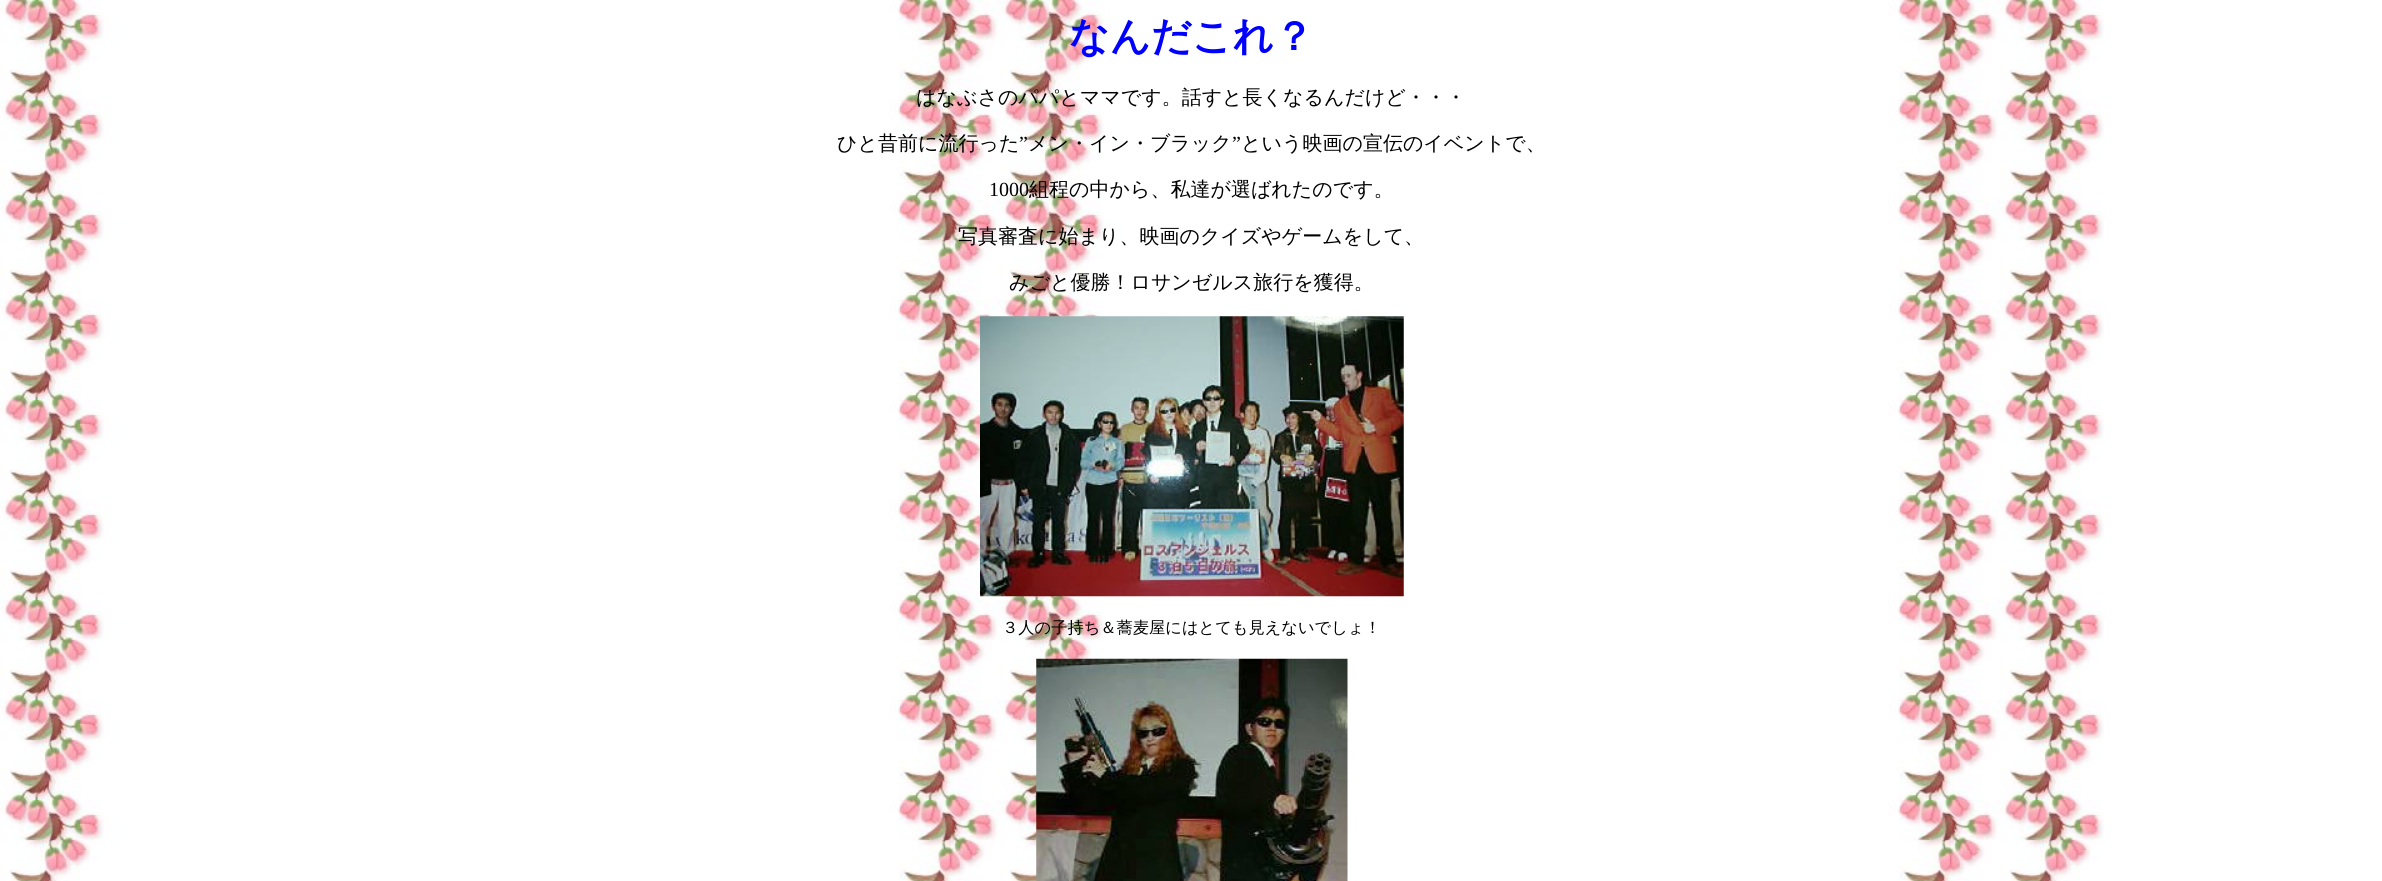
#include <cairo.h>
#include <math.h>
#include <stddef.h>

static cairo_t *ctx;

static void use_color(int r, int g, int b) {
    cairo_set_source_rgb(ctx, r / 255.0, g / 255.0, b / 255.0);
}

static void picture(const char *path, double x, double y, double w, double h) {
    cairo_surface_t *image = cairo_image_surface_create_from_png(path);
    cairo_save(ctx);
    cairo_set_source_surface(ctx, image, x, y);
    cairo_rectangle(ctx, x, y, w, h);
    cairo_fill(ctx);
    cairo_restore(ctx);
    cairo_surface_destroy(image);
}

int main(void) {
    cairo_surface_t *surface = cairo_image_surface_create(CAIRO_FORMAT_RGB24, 2382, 881);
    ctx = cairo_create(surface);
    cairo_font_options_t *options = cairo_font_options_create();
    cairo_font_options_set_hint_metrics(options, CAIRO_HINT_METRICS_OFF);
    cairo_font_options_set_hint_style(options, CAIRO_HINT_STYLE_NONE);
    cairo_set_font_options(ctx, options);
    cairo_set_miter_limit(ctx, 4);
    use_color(255, 255, 255);
    cairo_paint(ctx);
    picture("img1.png", 0, 0, 2104, 881);
    cairo_select_font_face(ctx, "WenQuanYi Zen Hei", CAIRO_FONT_SLANT_NORMAL, CAIRO_FONT_WEIGHT_BOLD);
    cairo_set_font_size(ctx, 40);
    use_color(0, 0, 255);
    cairo_move_to(ctx, 1069, 50);
    cairo_show_text(ctx, "なんだこれ？");
    cairo_select_font_face(ctx, "WenQuanYi Zen Hei Medium", CAIRO_FONT_SLANT_NORMAL, CAIRO_FONT_WEIGHT_NORMAL);
    cairo_set_font_size(ctx, 20);
    use_color(0, 0, 0);
    cairo_move_to(ctx, 916, 104);
    cairo_show_text(ctx, "はなぶさのパパとママです。話すと長くなるんだけど・・・");
    cairo_move_to(ctx, 837, 150);
    cairo_show_text(ctx, "ひと昔前に流行った");
    cairo_select_font_face(ctx, "Liberation Serif", CAIRO_FONT_SLANT_NORMAL, CAIRO_FONT_WEIGHT_NORMAL);
    cairo_move_to(ctx, 1019, 150);
    cairo_show_text(ctx, "”");
    cairo_select_font_face(ctx, "WenQuanYi Zen Hei Medium", CAIRO_FONT_SLANT_NORMAL, CAIRO_FONT_WEIGHT_NORMAL);
    cairo_move_to(ctx, 1028, 150);
    cairo_show_text(ctx, "メン・イン・ブラック");
    cairo_select_font_face(ctx, "Liberation Serif", CAIRO_FONT_SLANT_NORMAL, CAIRO_FONT_WEIGHT_NORMAL);
    cairo_move_to(ctx, 1232, 150);
    cairo_show_text(ctx, "”");
    cairo_select_font_face(ctx, "WenQuanYi Zen Hei Medium", CAIRO_FONT_SLANT_NORMAL, CAIRO_FONT_WEIGHT_NORMAL);
    cairo_move_to(ctx, 1241, 150);
    cairo_show_text(ctx, "という映画の宣伝のイベントで、");
    cairo_select_font_face(ctx, "Liberation Serif", CAIRO_FONT_SLANT_NORMAL, CAIRO_FONT_WEIGHT_NORMAL);
    cairo_move_to(ctx, 989, 196);
    cairo_show_text(ctx, "1000");
    cairo_select_font_face(ctx, "WenQuanYi Zen Hei Medium", CAIRO_FONT_SLANT_NORMAL, CAIRO_FONT_WEIGHT_NORMAL);
    cairo_move_to(ctx, 1029, 196);
    cairo_show_text(ctx, "組程の中から、私達が選ばれたのです。");
    cairo_move_to(ctx, 958, 243);
    cairo_show_text(ctx, "写真審査に始まり、映画のクイズやゲームをして、");
    cairo_move_to(ctx, 1009, 289);
    cairo_show_text(ctx, "みごと優勝！ロサンゼルス旅行を獲得。");
    picture("img2.png", 980, 316, 424, 281);
    cairo_set_font_size(ctx, 16.25);
    cairo_move_to(ctx, 1002, 633);
    cairo_show_text(ctx, "３人の子持ち＆蕎麦屋にはとても見えないでしょ！");
    picture("img3.png", 1036, 658, 312, 223);
    cairo_surface_write_to_png(surface, "result.png");
    cairo_font_options_destroy(options);
    cairo_destroy(ctx);
    cairo_surface_destroy(surface);
    return 0;
}
